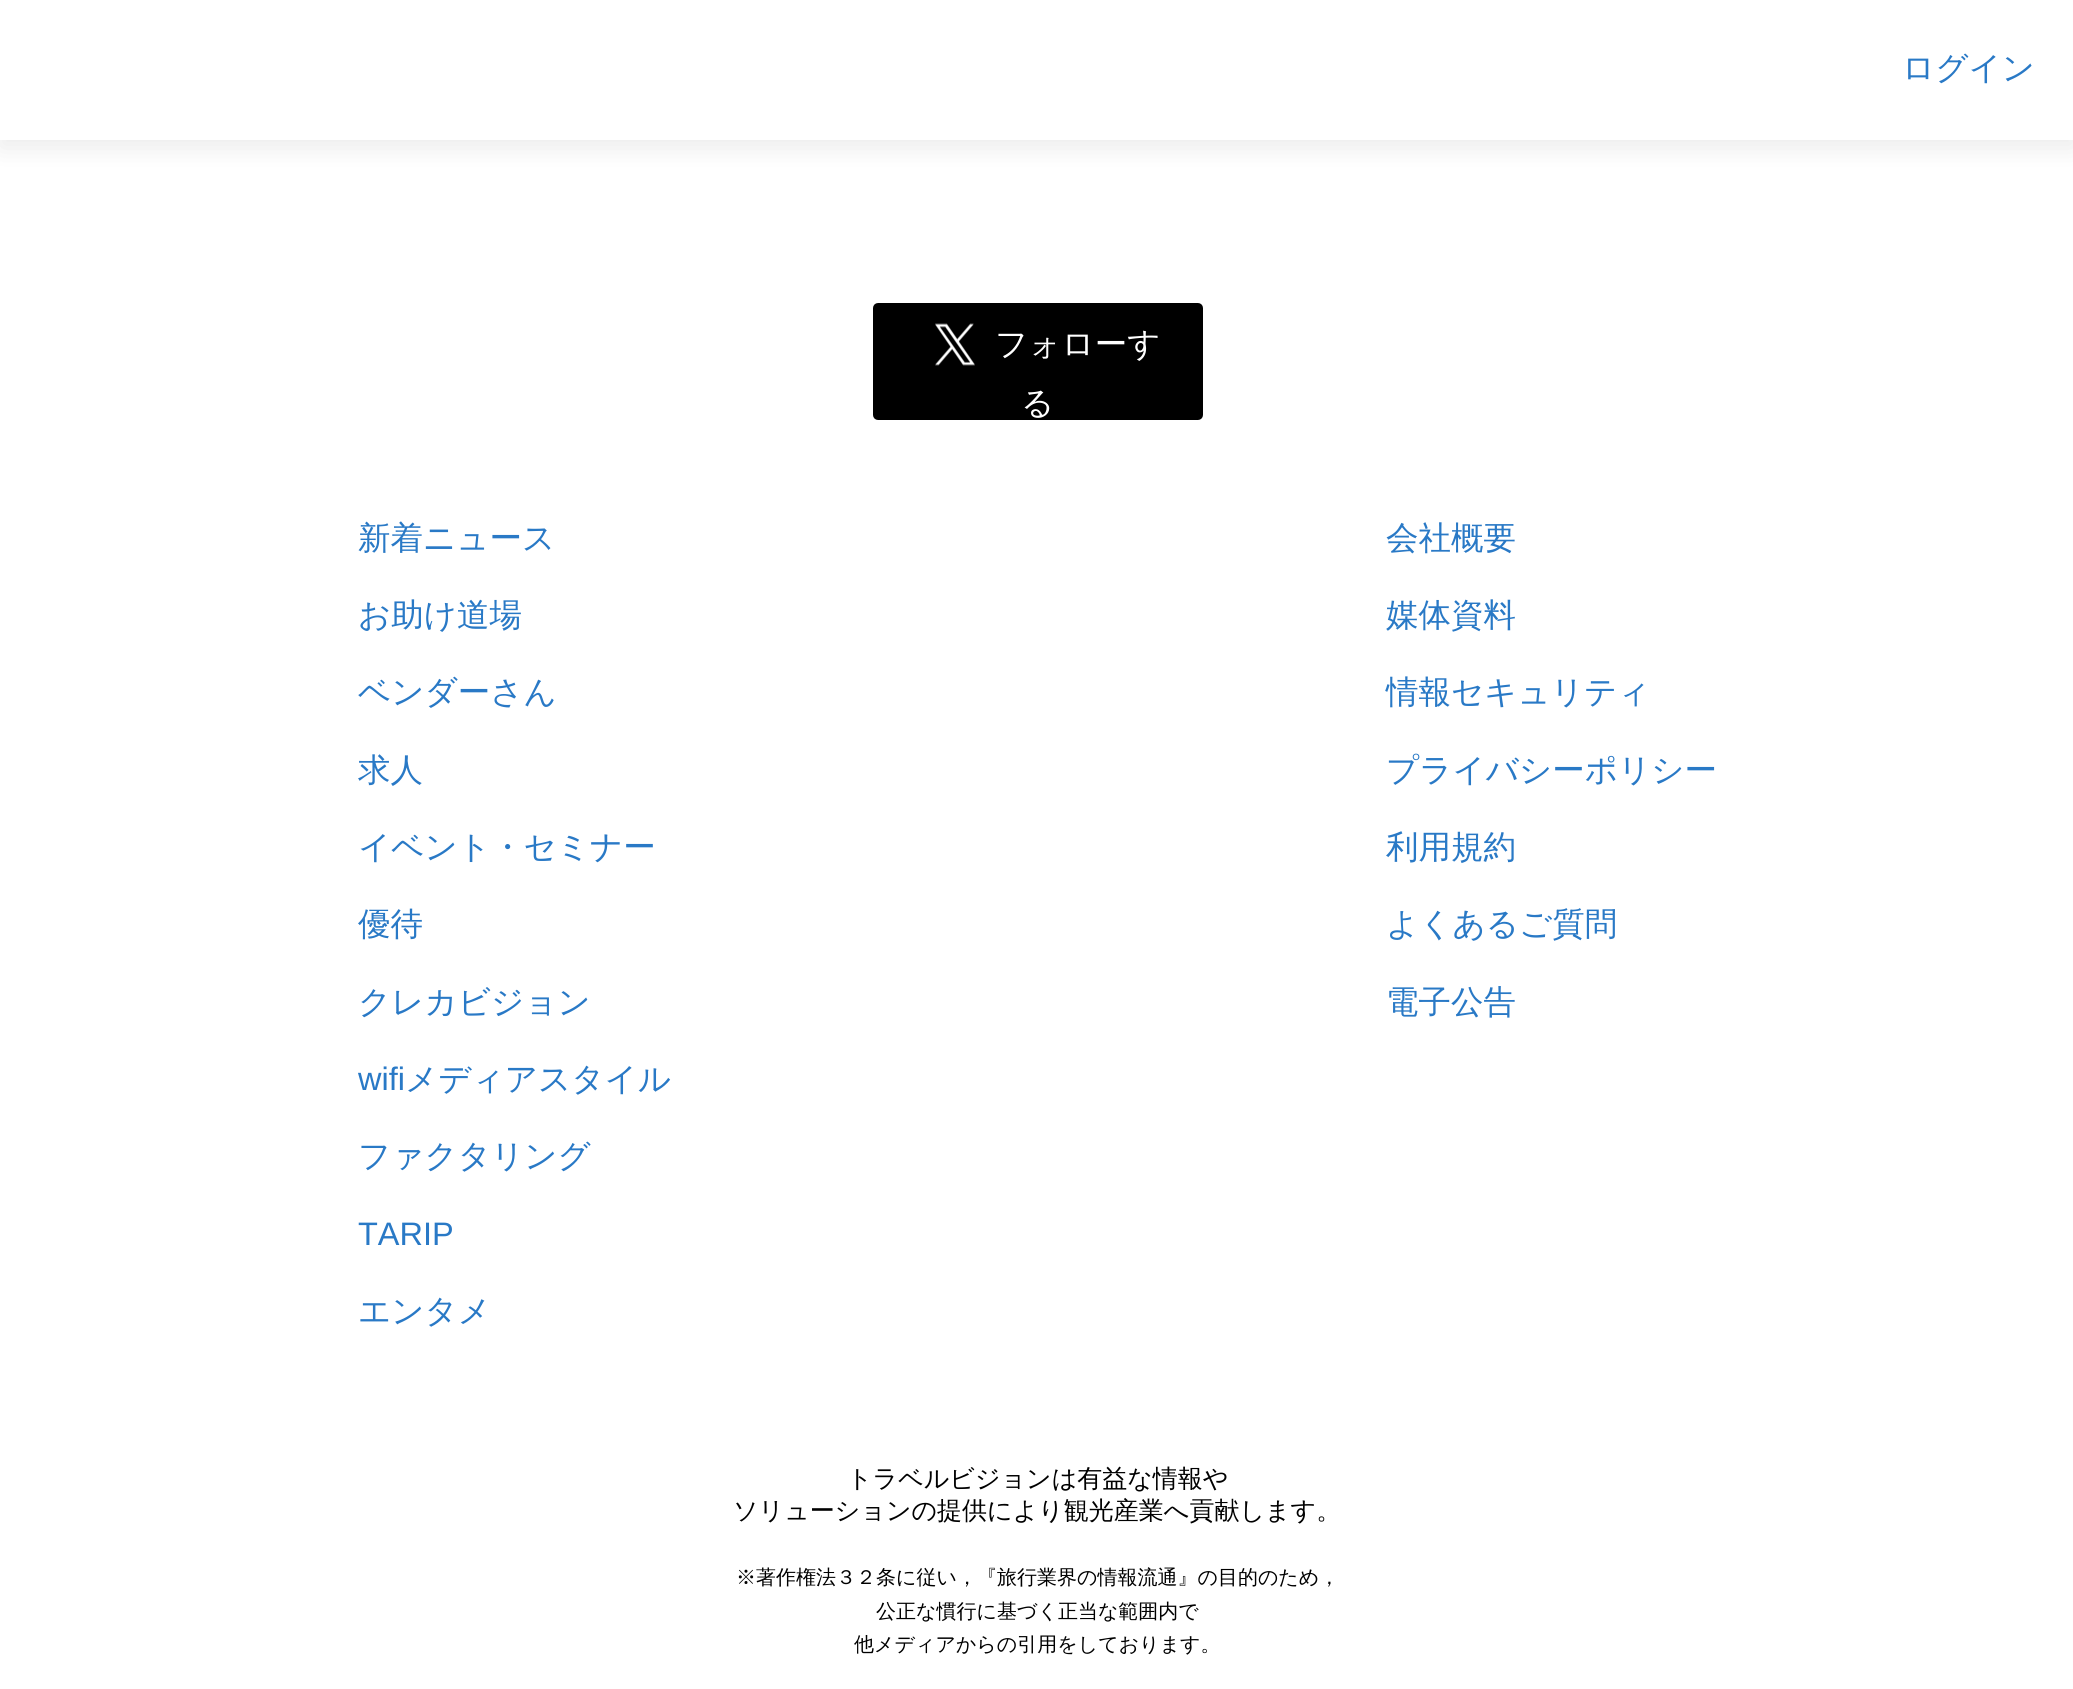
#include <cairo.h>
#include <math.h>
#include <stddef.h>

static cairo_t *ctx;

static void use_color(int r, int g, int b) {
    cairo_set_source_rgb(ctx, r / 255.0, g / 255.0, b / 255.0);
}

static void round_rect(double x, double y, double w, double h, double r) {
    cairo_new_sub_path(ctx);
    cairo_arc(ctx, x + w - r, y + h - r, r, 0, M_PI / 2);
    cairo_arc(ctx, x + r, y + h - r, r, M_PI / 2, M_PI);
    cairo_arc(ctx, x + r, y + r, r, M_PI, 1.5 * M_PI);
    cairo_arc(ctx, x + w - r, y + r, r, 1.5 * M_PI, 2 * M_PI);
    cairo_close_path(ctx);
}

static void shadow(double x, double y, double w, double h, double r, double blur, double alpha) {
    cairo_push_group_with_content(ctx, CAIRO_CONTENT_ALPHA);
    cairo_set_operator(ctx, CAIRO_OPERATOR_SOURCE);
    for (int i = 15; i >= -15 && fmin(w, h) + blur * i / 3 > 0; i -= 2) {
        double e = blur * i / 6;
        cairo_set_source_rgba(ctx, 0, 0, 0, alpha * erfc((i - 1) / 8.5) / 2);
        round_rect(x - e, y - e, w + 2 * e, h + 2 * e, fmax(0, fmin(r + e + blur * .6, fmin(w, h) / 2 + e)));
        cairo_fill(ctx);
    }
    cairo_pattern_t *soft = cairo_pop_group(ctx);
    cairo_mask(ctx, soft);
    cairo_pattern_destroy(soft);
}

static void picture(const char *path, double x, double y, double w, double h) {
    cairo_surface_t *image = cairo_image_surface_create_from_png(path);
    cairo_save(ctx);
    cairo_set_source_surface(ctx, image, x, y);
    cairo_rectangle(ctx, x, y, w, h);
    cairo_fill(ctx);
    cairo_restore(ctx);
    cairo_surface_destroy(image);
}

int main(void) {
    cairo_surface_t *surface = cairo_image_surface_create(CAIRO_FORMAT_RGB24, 2073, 1689);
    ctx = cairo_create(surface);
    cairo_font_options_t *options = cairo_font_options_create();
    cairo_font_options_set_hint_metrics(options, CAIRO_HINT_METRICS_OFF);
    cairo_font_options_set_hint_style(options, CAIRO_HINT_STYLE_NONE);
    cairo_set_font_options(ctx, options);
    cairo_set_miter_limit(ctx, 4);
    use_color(255, 255, 255);
    cairo_paint(ctx);
    use_color(0, 0, 0);
    shadow(0, 8, 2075, 140, 0, 12.5, 0.08);
    use_color(255, 255, 255);
    cairo_rectangle(ctx, 0, 0, 2073, 140);
    cairo_fill(ctx);
    cairo_select_font_face(ctx, "WenQuanYi Zen Hei Medium", CAIRO_FONT_SLANT_NORMAL, CAIRO_FONT_WEIGHT_NORMAL);
    cairo_set_font_size(ctx, 32.5);
    use_color(41, 121, 198);
    cairo_move_to(ctx, 1902, 79);
    cairo_show_text(ctx, "ログイン");
    use_color(0, 0, 0);
    round_rect(874.5, 304.5, 327, 114, 3.5);
    cairo_fill_preserve(ctx);
    cairo_set_line_width(ctx, 3);
    cairo_stroke(ctx);
    picture("img1.png", 935, 323, 40, 43);
    use_color(255, 255, 255);
    cairo_move_to(ctx, 995, 355);
    cairo_show_text(ctx, "フォローす");
    cairo_move_to(ctx, 1021, 414);
    cairo_show_text(ctx, "る");
    use_color(41, 121, 198);
    cairo_move_to(ctx, 358, 549);
    cairo_show_text(ctx, "新着ニュース");
    cairo_move_to(ctx, 358, 626);
    cairo_show_text(ctx, "お助け道場");
    cairo_move_to(ctx, 358, 703);
    cairo_show_text(ctx, "ベンダーさん");
    cairo_move_to(ctx, 358, 781);
    cairo_show_text(ctx, "求人");
    cairo_move_to(ctx, 358, 858);
    cairo_show_text(ctx, "イベント・セミナー");
    cairo_move_to(ctx, 358, 935);
    cairo_show_text(ctx, "優待");
    cairo_move_to(ctx, 358, 1013);
    cairo_show_text(ctx, "クレカビジョン");
    cairo_select_font_face(ctx, "Liberation Sans", CAIRO_FONT_SLANT_NORMAL, CAIRO_FONT_WEIGHT_NORMAL);
    cairo_move_to(ctx, 358, 1090);
    cairo_show_text(ctx, "wifi");
    cairo_select_font_face(ctx, "WenQuanYi Zen Hei Medium", CAIRO_FONT_SLANT_NORMAL, CAIRO_FONT_WEIGHT_NORMAL);
    cairo_move_to(ctx, 405, 1090);
    cairo_show_text(ctx, "メディアスタイル");
    cairo_move_to(ctx, 358, 1167);
    cairo_show_text(ctx, "ファクタリング");
    cairo_select_font_face(ctx, "Liberation Sans", CAIRO_FONT_SLANT_NORMAL, CAIRO_FONT_WEIGHT_NORMAL);
    cairo_move_to(ctx, 358, 1245);
    cairo_show_text(ctx, "TARIP");
    cairo_select_font_face(ctx, "WenQuanYi Zen Hei Medium", CAIRO_FONT_SLANT_NORMAL, CAIRO_FONT_WEIGHT_NORMAL);
    cairo_move_to(ctx, 358, 1322);
    cairo_show_text(ctx, "エンタメ");
    cairo_move_to(ctx, 1386, 549);
    cairo_show_text(ctx, "会社概要");
    cairo_move_to(ctx, 1386, 626);
    cairo_show_text(ctx, "媒体資料");
    cairo_move_to(ctx, 1386, 703);
    cairo_show_text(ctx, "情報セキュリティ");
    cairo_move_to(ctx, 1386, 781);
    cairo_show_text(ctx, "プライバシーポリシー");
    cairo_move_to(ctx, 1386, 858);
    cairo_show_text(ctx, "利用規約");
    cairo_move_to(ctx, 1386, 935);
    cairo_show_text(ctx, "よくあるご質問");
    cairo_move_to(ctx, 1386, 1013);
    cairo_show_text(ctx, "電子公告");
    cairo_set_font_size(ctx, 25);
    use_color(0, 0, 0);
    cairo_move_to(ctx, 847, 1487);
    cairo_show_text(ctx, "トラベルビジョンは有益な情報や");
    cairo_move_to(ctx, 733, 1519);
    cairo_show_text(ctx, "ソリューションの提供により観光産業へ貢献します。");
    cairo_set_font_size(ctx, 20);
    cairo_move_to(ctx, 736, 1584);
    cairo_show_text(ctx, "※著作権法３２条に従い，『旅行業界の情報流通』の目的のため，");
    cairo_move_to(ctx, 876, 1618);
    cairo_show_text(ctx, "公正な慣行に基づく正当な範囲内で");
    cairo_move_to(ctx, 854, 1651);
    cairo_show_text(ctx, "他メディアからの引用をしております。");
    cairo_surface_write_to_png(surface, "result.png");
    cairo_font_options_destroy(options);
    cairo_destroy(ctx);
    cairo_surface_destroy(surface);
    return 0;
}
